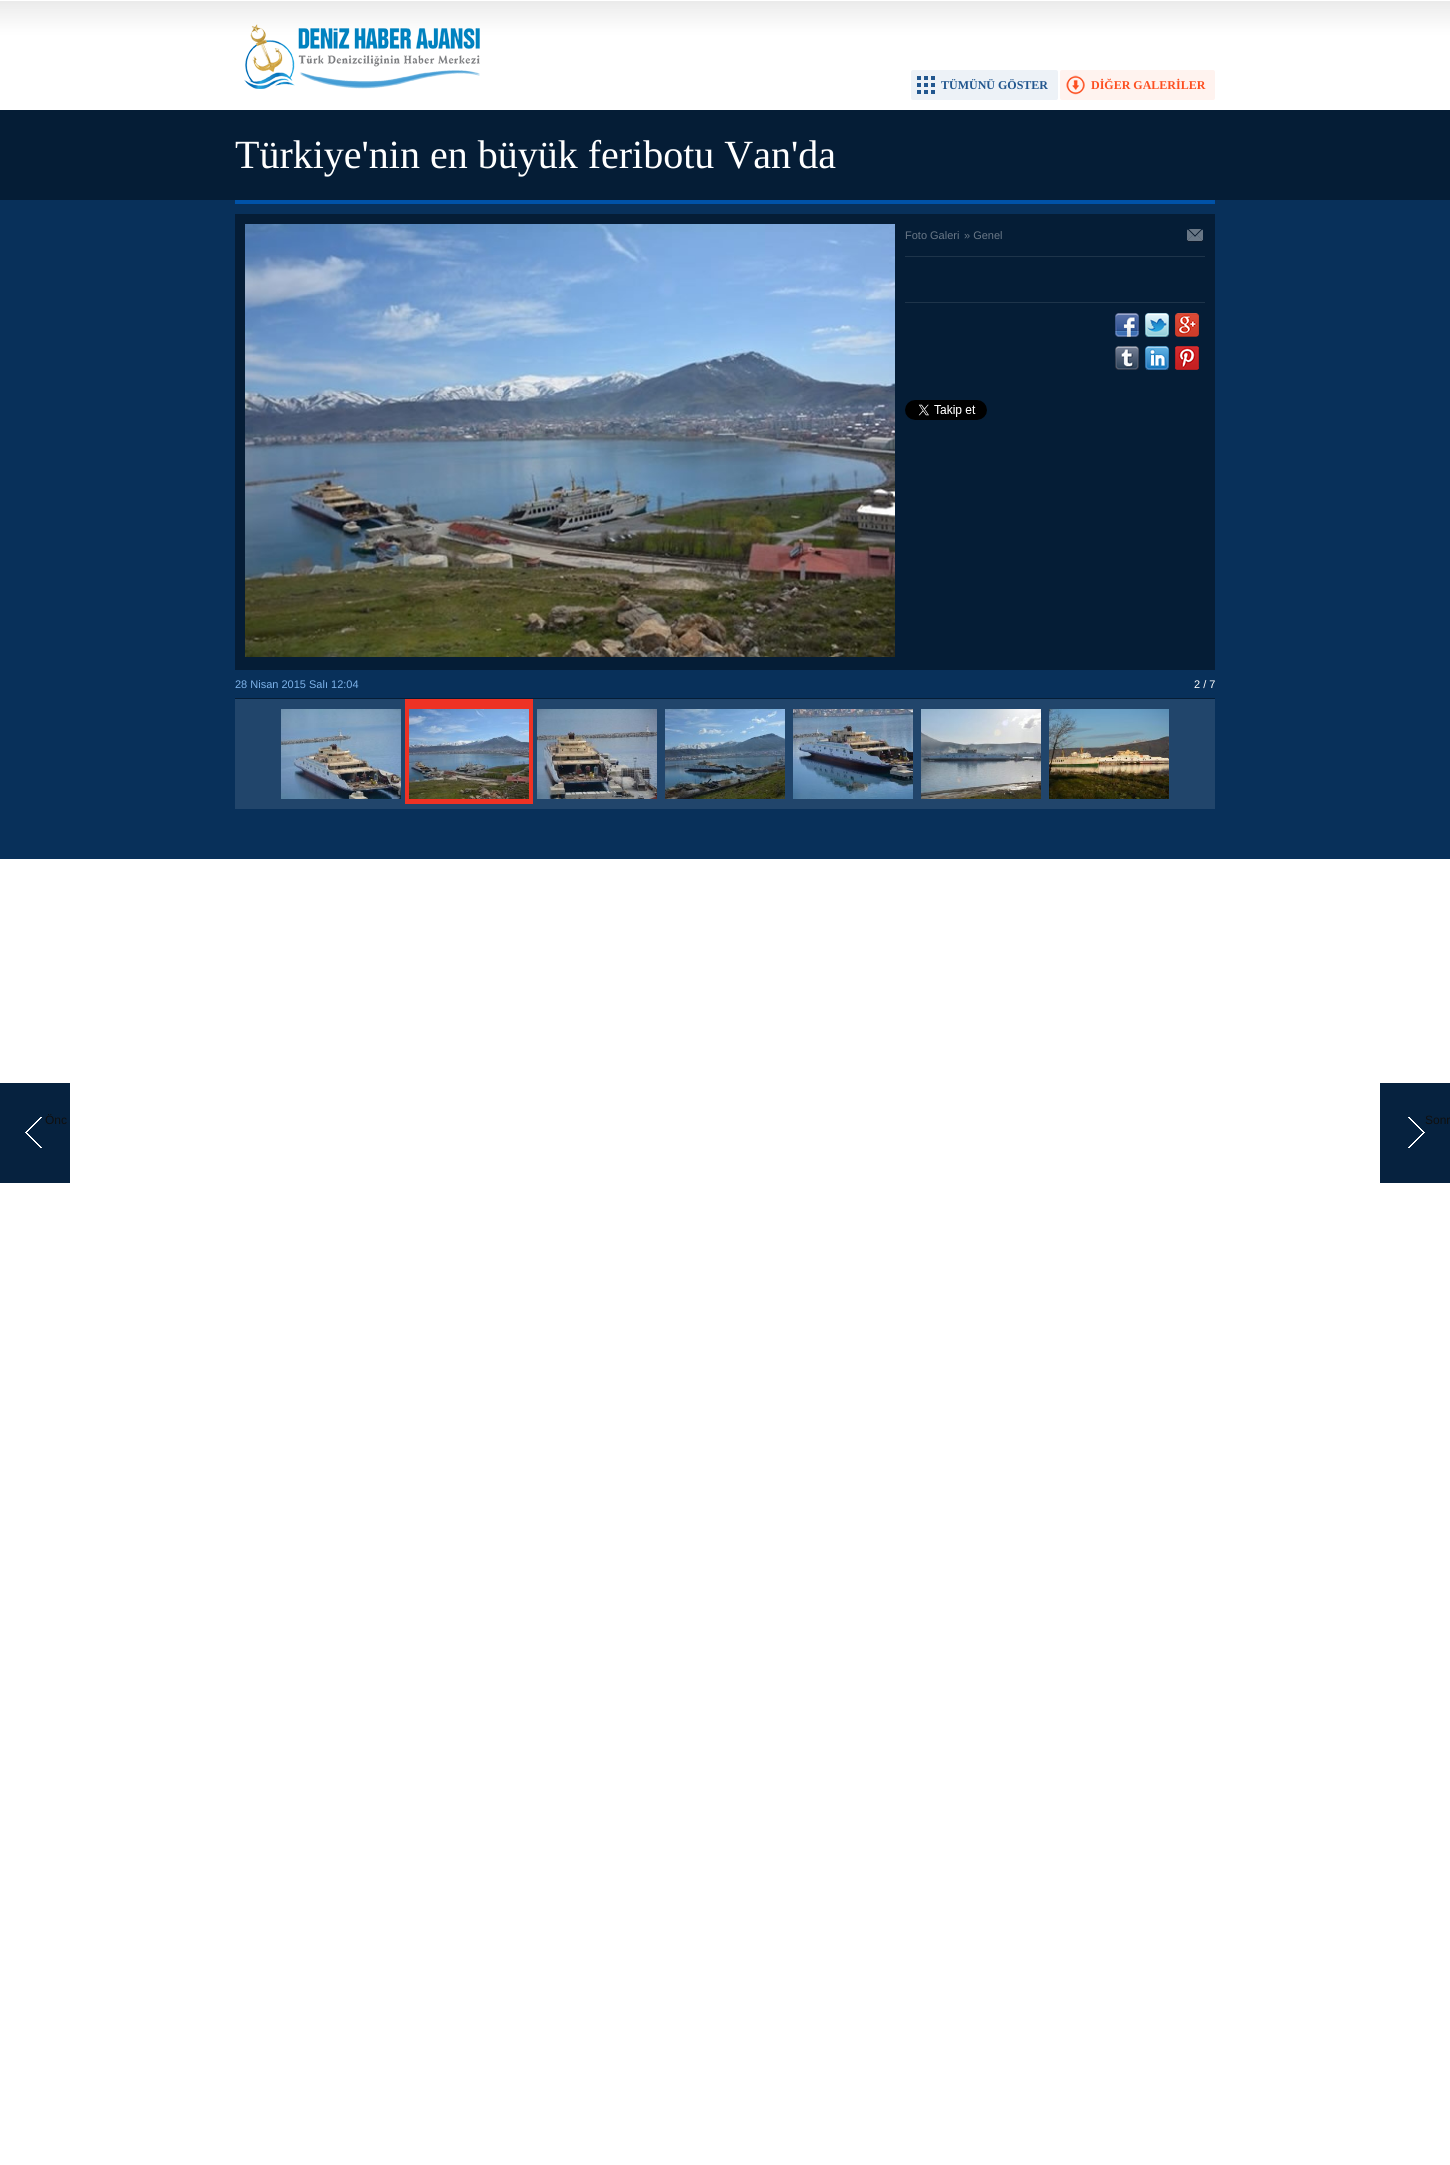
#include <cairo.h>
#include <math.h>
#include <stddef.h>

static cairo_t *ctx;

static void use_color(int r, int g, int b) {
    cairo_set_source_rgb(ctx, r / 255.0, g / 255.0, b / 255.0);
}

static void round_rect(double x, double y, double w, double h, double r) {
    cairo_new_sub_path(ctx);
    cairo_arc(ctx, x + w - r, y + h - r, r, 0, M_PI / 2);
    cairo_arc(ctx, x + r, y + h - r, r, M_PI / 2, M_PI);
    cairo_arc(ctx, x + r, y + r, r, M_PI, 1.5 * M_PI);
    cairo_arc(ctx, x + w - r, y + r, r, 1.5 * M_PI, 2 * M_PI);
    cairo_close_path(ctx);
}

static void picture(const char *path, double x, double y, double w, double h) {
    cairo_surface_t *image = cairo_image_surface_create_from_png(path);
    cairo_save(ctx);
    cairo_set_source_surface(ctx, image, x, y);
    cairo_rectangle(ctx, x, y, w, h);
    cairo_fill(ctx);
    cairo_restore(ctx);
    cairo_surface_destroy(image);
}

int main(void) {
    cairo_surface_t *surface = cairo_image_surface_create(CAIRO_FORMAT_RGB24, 1450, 2165);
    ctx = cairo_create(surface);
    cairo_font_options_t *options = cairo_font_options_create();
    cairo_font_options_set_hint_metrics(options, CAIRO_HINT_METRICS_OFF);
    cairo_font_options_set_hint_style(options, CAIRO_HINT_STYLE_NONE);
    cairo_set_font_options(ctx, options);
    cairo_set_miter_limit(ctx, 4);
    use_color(255, 255, 255);
    cairo_paint(ctx);
    use_color(8, 48, 90);
    cairo_rectangle(ctx, 0, 200, 1450, 659);
    cairo_fill(ctx);
    picture("img1.png", 0, 0, 1450, 200);
    picture("img2.png", 244, 24, 236, 65);
    use_color(237, 242, 247);
    round_rect(911, 70, 147, 30, 2);
    cairo_fill(ctx);
    picture("img3.png", 917, 76, 18, 18);
    cairo_select_font_face(ctx, "Liberation Serif", CAIRO_FONT_SLANT_NORMAL, CAIRO_FONT_WEIGHT_BOLD);
    cairo_set_font_size(ctx, 12);
    use_color(33, 86, 142);
    cairo_move_to(ctx, 941, 89);
    cairo_show_text(ctx, "TÜMÜNÜ GÖSTER");
    use_color(255, 243, 239);
    round_rect(1060, 70, 155, 30, 2);
    cairo_fill(ctx);
    picture("img4.png", 1066, 75, 19, 20);
    use_color(253, 79, 32);
    cairo_move_to(ctx, 1091, 89);
    cairo_show_text(ctx, "DİĞER GALERİLER");
    use_color(0, 82, 168);
    cairo_rectangle(ctx, 235, 200, 980, 4);
    cairo_fill(ctx);
    cairo_select_font_face(ctx, "Liberation Serif", CAIRO_FONT_SLANT_NORMAL, CAIRO_FONT_WEIGHT_NORMAL);
    cairo_set_font_size(ctx, 40);
    use_color(255, 255, 255);
    cairo_move_to(ctx, 235, 168);
    cairo_show_text(ctx, "Türkiye'nin en büyük feribotu Van'da");
    use_color(5, 29, 54);
    cairo_rectangle(ctx, 235, 214, 980, 456);
    cairo_fill(ctx);
    picture("img5.png", 245, 224, 650, 433);
    cairo_select_font_face(ctx, "Liberation Sans", CAIRO_FONT_SLANT_NORMAL, CAIRO_FONT_WEIGHT_NORMAL);
    cairo_set_font_size(ctx, 11);
    use_color(105, 119, 134);
    cairo_move_to(ctx, 905, 239);
    cairo_show_text(ctx, "Foto Galeri");
    cairo_move_to(ctx, 964, 239);
    cairo_show_text(ctx, "» Genel");
    picture("img6.png", 1187, 229, 16, 13);
    use_color(30, 52, 74);
    cairo_rectangle(ctx, 905, 256, 300, 1);
    cairo_fill(ctx);
    cairo_rectangle(ctx, 905, 302, 300, 1);
    cairo_fill(ctx);
    picture("img7.png", 1115, 313, 24, 24);
    picture("img8.png", 1145, 313, 24, 24);
    picture("img9.png", 1175, 313, 24, 24);
    picture("img10.png", 1115, 346, 24, 24);
    picture("img11.png", 1145, 346, 24, 24);
    picture("img12.png", 1175, 346, 24, 24);
    picture("img13.png", 905, 400, 82, 20);
    use_color(125, 178, 233);
    cairo_move_to(ctx, 235, 688);
    cairo_show_text(ctx, "28 Nisan 2015 Salı 12:04");
    use_color(255, 255, 255);
    cairo_move_to(ctx, 1194, 688);
    cairo_show_text(ctx, "2 / 7");
    use_color(33, 69, 107);
    cairo_rectangle(ctx, 235, 699, 980, 110);
    cairo_fill(ctx);
    use_color(5, 29, 54);
    cairo_rectangle(ctx, 235, 698, 980, 1);
    cairo_fill(ctx);
    picture("img14.png", 281, 709, 120, 90);
    use_color(238, 50, 36);
    cairo_rectangle(ctx, 405, 699, 128, 105);
    cairo_fill(ctx);
    picture("img15.png", 409, 709, 120, 90);
    picture("img16.png", 537, 709, 120, 90);
    picture("img17.png", 665, 709, 120, 90);
    picture("img18.png", 793, 709, 120, 90);
    picture("img19.png", 921, 709, 120, 90);
    picture("img20.png", 1049, 709, 120, 90);
    use_color(6, 34, 63);
    cairo_rectangle(ctx, 0, 1083, 70, 100);
    cairo_fill(ctx);
    picture("img21.png", 25, 1117, 17, 31);
    cairo_set_font_size(ctx, 12);
    use_color(15, 15, 15);
    cairo_move_to(ctx, 45, 1124);
    cairo_show_text(ctx, "Önc");
    use_color(6, 34, 63);
    cairo_rectangle(ctx, 1380, 1083, 70, 100);
    cairo_fill(ctx);
    picture("img22.png", 1408, 1117, 17, 31);
    use_color(15, 15, 15);
    cairo_move_to(ctx, 1425, 1124);
    cairo_show_text(ctx, "Sonr");
    cairo_surface_write_to_png(surface, "result.png");
    cairo_font_options_destroy(options);
    cairo_destroy(ctx);
    cairo_surface_destroy(surface);
    return 0;
}
